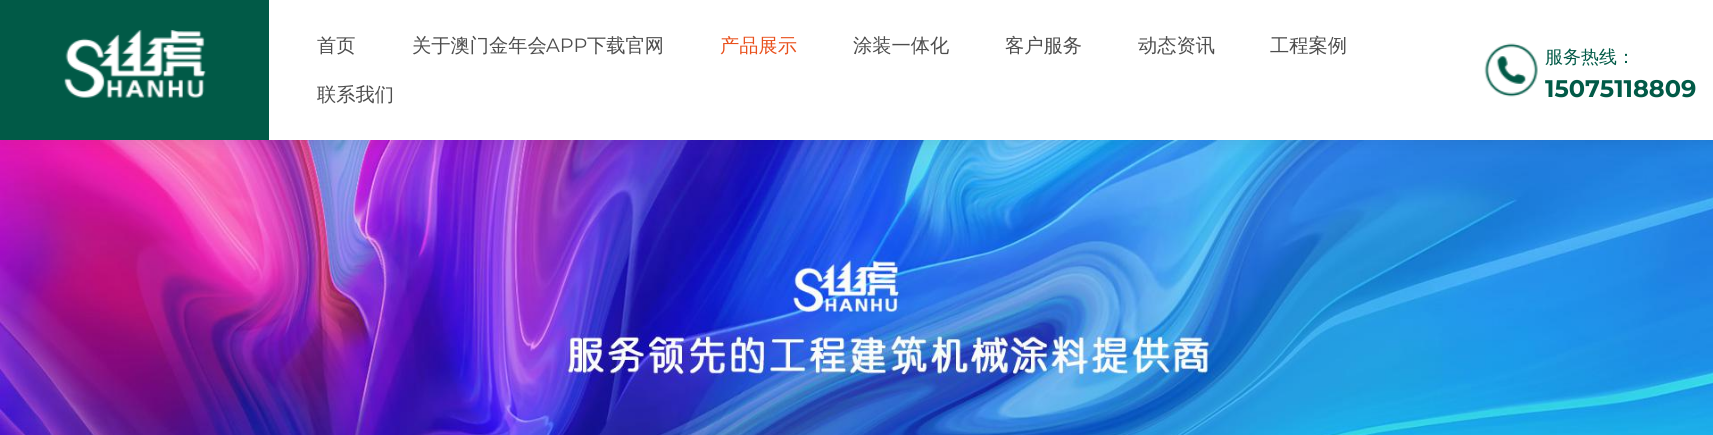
#include <cairo.h>
#include <math.h>
#include <stddef.h>

static cairo_t *ctx;

static void use_color(int r, int g, int b) {
    cairo_set_source_rgb(ctx, r / 255.0, g / 255.0, b / 255.0);
}

static void round_rect(double x, double y, double w, double h, double r) {
    cairo_new_sub_path(ctx);
    cairo_arc(ctx, x + w - r, y + h - r, r, 0, M_PI / 2);
    cairo_arc(ctx, x + r, y + h - r, r, M_PI / 2, M_PI);
    cairo_arc(ctx, x + r, y + r, r, M_PI, 1.5 * M_PI);
    cairo_arc(ctx, x + w - r, y + r, r, 1.5 * M_PI, 2 * M_PI);
    cairo_close_path(ctx);
}

static void shadow(double x, double y, double w, double h, double r, double blur, double alpha) {
    cairo_push_group_with_content(ctx, CAIRO_CONTENT_ALPHA);
    cairo_set_operator(ctx, CAIRO_OPERATOR_SOURCE);
    for (int i = 15; i >= -15 && fmin(w, h) + blur * i / 3 > 0; i -= 2) {
        double e = blur * i / 6;
        cairo_set_source_rgba(ctx, 0, 0, 0, alpha * erfc((i - 1) / 8.5) / 2);
        round_rect(x - e, y - e, w + 2 * e, h + 2 * e, fmax(0, fmin(r + e + blur * .6, fmin(w, h) / 2 + e)));
        cairo_fill(ctx);
    }
    cairo_pattern_t *soft = cairo_pop_group(ctx);
    cairo_mask(ctx, soft);
    cairo_pattern_destroy(soft);
}

static void picture(const char *path, double x, double y, double w, double h) {
    cairo_surface_t *image = cairo_image_surface_create_from_png(path);
    cairo_save(ctx);
    cairo_set_source_surface(ctx, image, x, y);
    cairo_rectangle(ctx, x, y, w, h);
    cairo_fill(ctx);
    cairo_restore(ctx);
    cairo_surface_destroy(image);
}

int main(void) {
    cairo_surface_t *surface = cairo_image_surface_create(CAIRO_FORMAT_RGB24, 1713, 435);
    ctx = cairo_create(surface);
    cairo_font_options_t *options = cairo_font_options_create();
    cairo_font_options_set_hint_metrics(options, CAIRO_HINT_METRICS_OFF);
    cairo_font_options_set_hint_style(options, CAIRO_HINT_STYLE_NONE);
    cairo_set_font_options(ctx, options);
    cairo_set_miter_limit(ctx, 4);
    use_color(255, 255, 255);
    cairo_paint(ctx);
    picture("img3.png", 0, 140, 1713, 295);
    use_color(0, 0, 0);
    shadow(0, 0, 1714, 140, 0, 9.5, 0.1);
    use_color(255, 255, 255);
    cairo_rectangle(ctx, 269, 0, 1444, 140);
    cairo_fill(ctx);
    use_color(1, 90, 71);
    cairo_rectangle(ctx, 0, 0, 269, 140);
    cairo_fill(ctx);
    picture("img1.png", 64, 30, 142, 68);
    cairo_select_font_face(ctx, "WenQuanYi Zen Hei Medium", CAIRO_FONT_SLANT_NORMAL, CAIRO_FONT_WEIGHT_NORMAL);
    cairo_set_font_size(ctx, 19.25);
    use_color(77, 77, 77);
    cairo_move_to(ctx, 317, 52);
    cairo_show_text(ctx, "首页");
    cairo_move_to(ctx, 412, 52);
    cairo_show_text(ctx, "关于澳门金年会");
    cairo_select_font_face(ctx, "Montserrat", CAIRO_FONT_SLANT_NORMAL, CAIRO_FONT_WEIGHT_NORMAL);
    cairo_move_to(ctx, 546, 52);
    cairo_show_text(ctx, "APP");
    cairo_select_font_face(ctx, "WenQuanYi Zen Hei Medium", CAIRO_FONT_SLANT_NORMAL, CAIRO_FONT_WEIGHT_NORMAL);
    cairo_move_to(ctx, 587, 52);
    cairo_show_text(ctx, "下载官网");
    use_color(233, 80, 28);
    cairo_move_to(ctx, 720, 52);
    cairo_show_text(ctx, "产品展示");
    use_color(77, 77, 77);
    cairo_move_to(ctx, 853, 52);
    cairo_show_text(ctx, "涂装一体化");
    cairo_move_to(ctx, 1005, 52);
    cairo_show_text(ctx, "客户服务");
    cairo_move_to(ctx, 1138, 52);
    cairo_show_text(ctx, "动态资讯");
    cairo_move_to(ctx, 1270, 52);
    cairo_show_text(ctx, "工程案例");
    cairo_move_to(ctx, 317, 101);
    cairo_show_text(ctx, "联系我们");
    picture("img2.png", 1484, 43, 54, 54);
    cairo_set_font_size(ctx, 18);
    use_color(1, 90, 71);
    cairo_move_to(ctx, 1545, 63);
    cairo_show_text(ctx, "服务热线：");
    cairo_select_font_face(ctx, "Montserrat", CAIRO_FONT_SLANT_NORMAL, CAIRO_FONT_WEIGHT_BOLD);
    cairo_set_font_size(ctx, 24);
    cairo_move_to(ctx, 1545, 97);
    cairo_show_text(ctx, "15075118809");
    cairo_surface_write_to_png(surface, "result.png");
    cairo_font_options_destroy(options);
    cairo_destroy(ctx);
    cairo_surface_destroy(surface);
    return 0;
}
